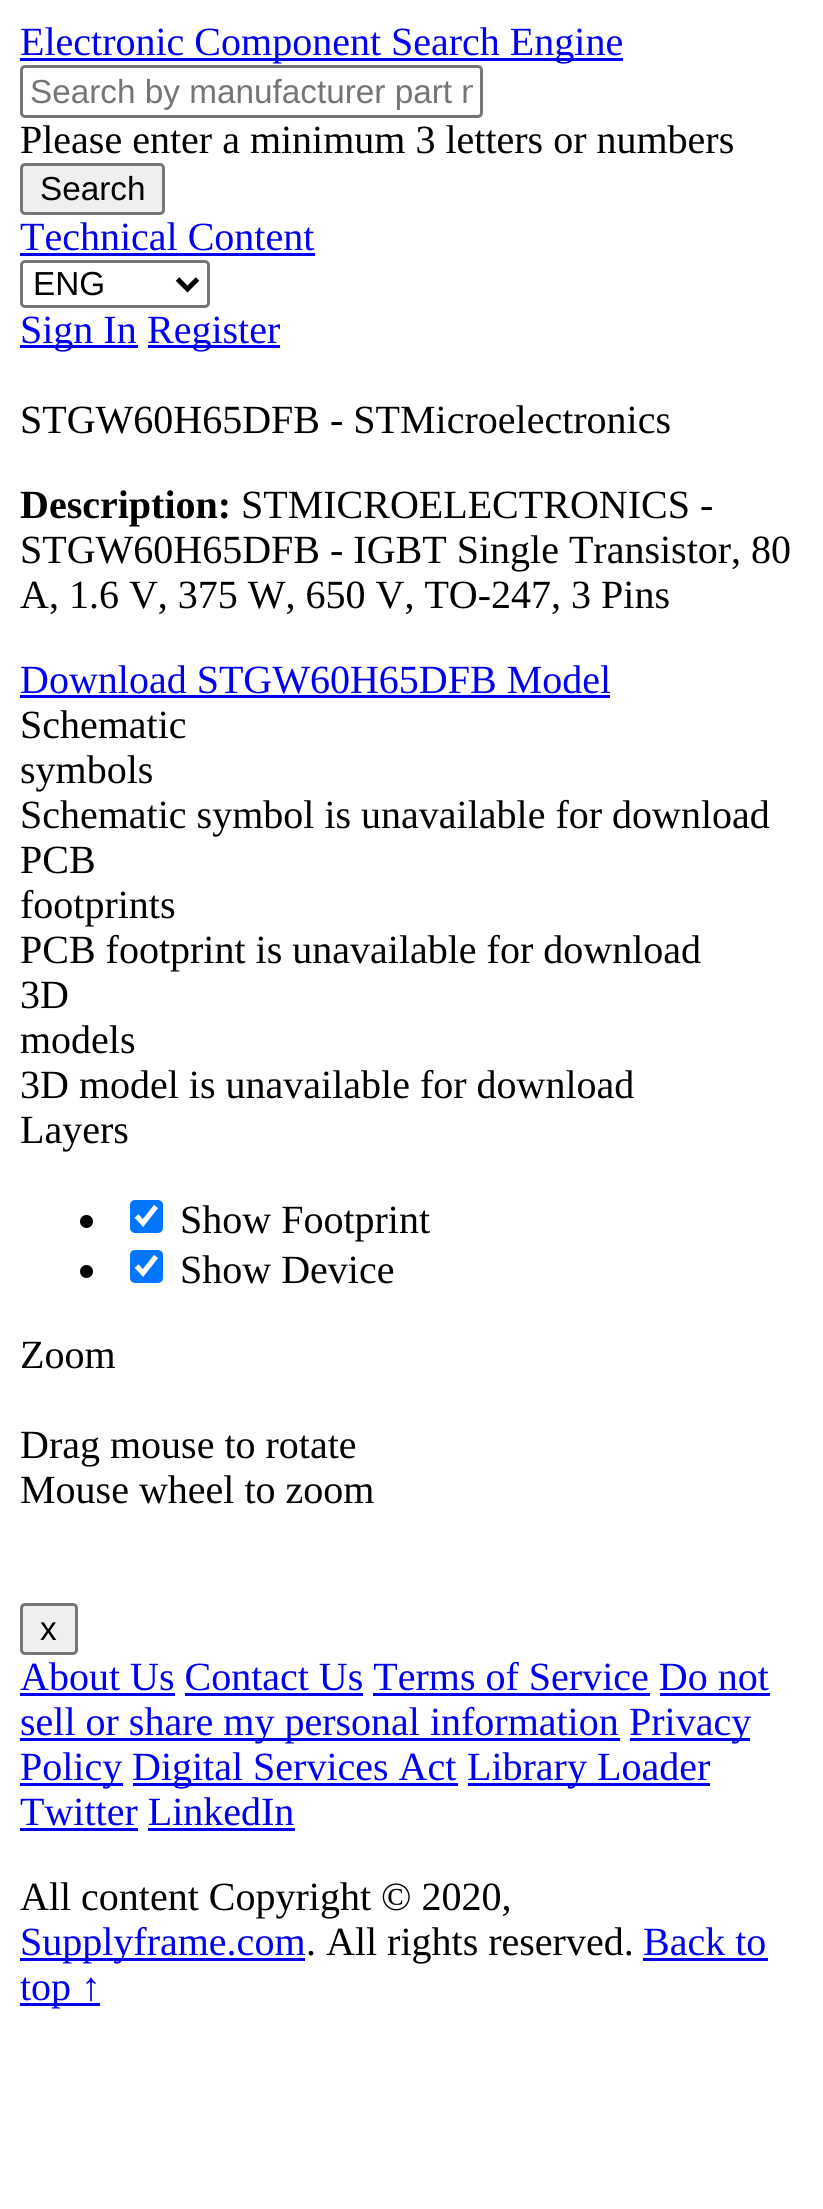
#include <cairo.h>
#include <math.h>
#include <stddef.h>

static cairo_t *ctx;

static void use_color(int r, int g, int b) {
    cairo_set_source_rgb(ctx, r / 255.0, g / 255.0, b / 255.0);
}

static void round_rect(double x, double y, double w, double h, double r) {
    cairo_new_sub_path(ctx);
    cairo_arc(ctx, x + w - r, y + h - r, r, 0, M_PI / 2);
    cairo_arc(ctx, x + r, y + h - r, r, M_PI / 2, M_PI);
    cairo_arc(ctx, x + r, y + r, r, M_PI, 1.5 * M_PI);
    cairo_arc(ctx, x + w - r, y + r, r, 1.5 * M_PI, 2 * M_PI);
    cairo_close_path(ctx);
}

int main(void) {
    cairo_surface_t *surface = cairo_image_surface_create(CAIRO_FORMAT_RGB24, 823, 2209);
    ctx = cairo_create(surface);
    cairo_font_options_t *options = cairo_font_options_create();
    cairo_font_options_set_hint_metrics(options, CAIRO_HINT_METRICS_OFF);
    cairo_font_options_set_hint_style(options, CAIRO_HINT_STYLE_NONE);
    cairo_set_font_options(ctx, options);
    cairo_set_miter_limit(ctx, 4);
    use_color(255, 255, 255);
    cairo_paint(ctx);
    use_color(0, 0, 238);
    cairo_rectangle(ctx, 20, 58, 603, 3);
    cairo_fill(ctx);
    cairo_select_font_face(ctx, "Liberation Serif", CAIRO_FONT_SLANT_NORMAL, CAIRO_FONT_WEIGHT_NORMAL);
    cairo_set_font_size(ctx, 40);
    cairo_move_to(ctx, 20, 55);
    cairo_show_text(ctx, "Electronic Component Search Engine");
    round_rect(21.5, 66.5, 460, 50, 3.5);
    use_color(118, 118, 118);
    cairo_set_line_width(ctx, 3);
    cairo_stroke(ctx);
    cairo_save(ctx);
    cairo_rectangle(ctx, 30, 73, 443, 37);
    cairo_clip(ctx);
    cairo_select_font_face(ctx, "Liberation Sans", CAIRO_FONT_SLANT_NORMAL, CAIRO_FONT_WEIGHT_NORMAL);
    cairo_set_font_size(ctx, 33.3);
    use_color(117, 117, 117);
    cairo_move_to(ctx, 30, 103);
    cairo_show_text(ctx, "Search by manufacturer part n");
    cairo_restore(ctx);
    use_color(0, 0, 0);
    cairo_move_to(ctx, 20, 153);
    cairo_show_text(ctx, "Please enter a minimum 3 letters or numbers");
    use_color(239, 239, 239);
    round_rect(21.5, 164.5, 142, 49, 3.5);
    cairo_fill_preserve(ctx);
    use_color(118, 118, 118);
    cairo_stroke(ctx);
    cairo_select_font_face(ctx, "Liberation Sans", CAIRO_FONT_SLANT_NORMAL, CAIRO_FONT_WEIGHT_NORMAL);
    cairo_set_font_size(ctx, 33.3);
    use_color(0, 0, 0);
    cairo_move_to(ctx, 40, 200);
    cairo_show_text(ctx, "Search");
    cairo_select_font_face(ctx, "Liberation Serif", CAIRO_FONT_SLANT_NORMAL, CAIRO_FONT_WEIGHT_NORMAL);
    cairo_set_font_size(ctx, 40);
    use_color(0, 0, 238);
    cairo_move_to(ctx, 20, 250);
    cairo_show_text(ctx, "Technical Content");
    cairo_rectangle(ctx, 20, 253, 295, 3);
    cairo_fill(ctx);
    round_rect(21.5, 261.5, 187, 45, 3.5);
    use_color(118, 118, 118);
    cairo_stroke(ctx);
    cairo_new_path(ctx);
    cairo_move_to(ctx, 177.5, 279);
    cairo_line_to(ctx, 187.5, 289);
    cairo_line_to(ctx, 197.5, 279);
    use_color(0, 0, 0);
    cairo_set_line_width(ctx, 5);
    cairo_stroke(ctx);
    cairo_select_font_face(ctx, "Liberation Sans", CAIRO_FONT_SLANT_NORMAL, CAIRO_FONT_WEIGHT_NORMAL);
    cairo_set_font_size(ctx, 33.3);
    cairo_move_to(ctx, 33, 295);
    cairo_show_text(ctx, "ENG");
    use_color(0, 0, 238);
    cairo_rectangle(ctx, 20, 345, 118, 3);
    cairo_fill(ctx);
    cairo_select_font_face(ctx, "Liberation Serif", CAIRO_FONT_SLANT_NORMAL, CAIRO_FONT_WEIGHT_NORMAL);
    cairo_set_font_size(ctx, 40);
    cairo_move_to(ctx, 20, 343);
    cairo_show_text(ctx, "Sign In");
    cairo_rectangle(ctx, 148, 345, 132, 3);
    cairo_fill(ctx);
    cairo_move_to(ctx, 147, 343);
    cairo_show_text(ctx, "Register");
    use_color(0, 0, 0);
    cairo_move_to(ctx, 20, 433);
    cairo_show_text(ctx, "STGW60H65DFB - STMicroelectronics");
    cairo_select_font_face(ctx, "Liberation Serif", CAIRO_FONT_SLANT_NORMAL, CAIRO_FONT_WEIGHT_BOLD);
    cairo_move_to(ctx, 20, 518);
    cairo_show_text(ctx, "Description:");
    cairo_select_font_face(ctx, "Liberation Serif", CAIRO_FONT_SLANT_NORMAL, CAIRO_FONT_WEIGHT_NORMAL);
    cairo_move_to(ctx, 241, 518);
    cairo_show_text(ctx, "STMICROELECTRONICS -");
    cairo_move_to(ctx, 20, 563);
    cairo_show_text(ctx, "STGW60H65DFB - IGBT Single Transistor, 80");
    cairo_move_to(ctx, 20, 608);
    cairo_show_text(ctx, "A, 1.6 V, 375 W, 650 V, TO-247, 3 Pins");
    use_color(0, 0, 238);
    cairo_move_to(ctx, 20, 693);
    cairo_show_text(ctx, "Download STGW60H65DFB Model");
    cairo_rectangle(ctx, 20, 695, 590, 3);
    cairo_fill(ctx);
    use_color(0, 0, 0);
    cairo_move_to(ctx, 20, 738);
    cairo_show_text(ctx, "Schematic");
    cairo_move_to(ctx, 20, 783);
    cairo_show_text(ctx, "symbols");
    cairo_move_to(ctx, 20, 828);
    cairo_show_text(ctx, "Schematic symbol is unavailable for download");
    cairo_move_to(ctx, 20, 873);
    cairo_show_text(ctx, "PCB");
    cairo_move_to(ctx, 20, 918);
    cairo_show_text(ctx, "footprints");
    cairo_move_to(ctx, 20, 963);
    cairo_show_text(ctx, "PCB footprint is unavailable for download");
    cairo_move_to(ctx, 20, 1008);
    cairo_show_text(ctx, "3D");
    cairo_move_to(ctx, 20, 1053);
    cairo_show_text(ctx, "models");
    cairo_move_to(ctx, 20, 1098);
    cairo_show_text(ctx, "3D model is unavailable for download");
    cairo_move_to(ctx, 20, 1143);
    cairo_show_text(ctx, "Layers");
    cairo_new_path(ctx);
    cairo_arc(ctx, 86.5, 1221.5, 6.5, 0, 2 * M_PI);
    cairo_fill(ctx);
    use_color(0, 117, 255);
    round_rect(130, 1200, 33, 33, 5);
    cairo_fill(ctx);
    cairo_new_path(ctx);
    cairo_move_to(ctx, 136.5, 1216);
    cairo_line_to(ctx, 143, 1223);
    cairo_line_to(ctx, 156, 1206.5);
    use_color(255, 255, 255);
    cairo_set_line_width(ctx, 5.2);
    cairo_stroke(ctx);
    use_color(0, 0, 0);
    cairo_move_to(ctx, 180, 1233);
    cairo_show_text(ctx, "Show Footprint");
    cairo_new_path(ctx);
    cairo_arc(ctx, 86.5, 1271.5, 6.5, 0, 2 * M_PI);
    cairo_fill(ctx);
    use_color(0, 117, 255);
    round_rect(130, 1250, 33, 33, 5);
    cairo_fill(ctx);
    cairo_new_path(ctx);
    cairo_move_to(ctx, 136.5, 1266);
    cairo_line_to(ctx, 143, 1273);
    cairo_line_to(ctx, 156, 1256.5);
    use_color(255, 255, 255);
    cairo_stroke(ctx);
    use_color(0, 0, 0);
    cairo_move_to(ctx, 180, 1283);
    cairo_show_text(ctx, "Show Device");
    cairo_move_to(ctx, 20, 1368);
    cairo_show_text(ctx, "Zoom");
    cairo_move_to(ctx, 20, 1458);
    cairo_show_text(ctx, "Drag mouse to rotate");
    cairo_move_to(ctx, 20, 1503);
    cairo_show_text(ctx, "Mouse wheel to zoom");
    use_color(239, 239, 239);
    round_rect(21.5, 1604.5, 55, 49, 3.5);
    cairo_fill_preserve(ctx);
    use_color(118, 118, 118);
    cairo_set_line_width(ctx, 3);
    cairo_stroke(ctx);
    cairo_select_font_face(ctx, "Liberation Sans", CAIRO_FONT_SLANT_NORMAL, CAIRO_FONT_WEIGHT_NORMAL);
    cairo_set_font_size(ctx, 33.3);
    use_color(0, 0, 0);
    cairo_move_to(ctx, 40, 1640);
    cairo_show_text(ctx, "x");
    cairo_select_font_face(ctx, "Liberation Serif", CAIRO_FONT_SLANT_NORMAL, CAIRO_FONT_WEIGHT_NORMAL);
    cairo_set_font_size(ctx, 40);
    use_color(0, 0, 238);
    cairo_move_to(ctx, 20, 1690);
    cairo_show_text(ctx, "About Us Contact Us Terms of Service Do not");
    cairo_rectangle(ctx, 20, 1693, 155, 3);
    cairo_fill(ctx);
    cairo_rectangle(ctx, 185, 1693, 178, 3);
    cairo_fill(ctx);
    cairo_rectangle(ctx, 373, 1693, 277, 3);
    cairo_fill(ctx);
    cairo_rectangle(ctx, 20, 1738, 600, 3);
    cairo_fill(ctx);
    cairo_move_to(ctx, 20, 1735);
    cairo_show_text(ctx, "sell or share my personal information");
    cairo_rectangle(ctx, 660, 1693, 110, 3);
    cairo_fill(ctx);
    cairo_rectangle(ctx, 630, 1738, 120, 3);
    cairo_fill(ctx);
    cairo_move_to(ctx, 629, 1735);
    cairo_show_text(ctx, "Privacy");
    cairo_rectangle(ctx, 20, 1783, 103, 3);
    cairo_fill(ctx);
    cairo_move_to(ctx, 20, 1780);
    cairo_show_text(ctx, "Policy");
    cairo_rectangle(ctx, 133, 1783, 325, 3);
    cairo_fill(ctx);
    cairo_move_to(ctx, 132, 1780);
    cairo_show_text(ctx, "Digital Services Act");
    cairo_rectangle(ctx, 468, 1783, 242, 3);
    cairo_fill(ctx);
    cairo_move_to(ctx, 467, 1780);
    cairo_show_text(ctx, "Library Loader");
    cairo_move_to(ctx, 20, 1825);
    cairo_show_text(ctx, "Twitter LinkedIn");
    cairo_rectangle(ctx, 20, 1828, 118, 3);
    cairo_fill(ctx);
    cairo_rectangle(ctx, 148, 1828, 147, 3);
    cairo_fill(ctx);
    use_color(0, 0, 0);
    cairo_move_to(ctx, 20, 1910);
    cairo_show_text(ctx, "All content Copyright © 2020,");
    use_color(0, 0, 238);
    cairo_rectangle(ctx, 20, 1958, 285, 3);
    cairo_fill(ctx);
    cairo_move_to(ctx, 20, 1955);
    cairo_show_text(ctx, "Supplyframe.com");
    use_color(0, 0, 0);
    cairo_move_to(ctx, 306, 1955);
    cairo_show_text(ctx, ". All rights reserved.");
    use_color(0, 0, 238);
    cairo_move_to(ctx, 643, 1955);
    cairo_show_text(ctx, "Back to");
    cairo_rectangle(ctx, 643, 1958, 125, 3);
    cairo_fill(ctx);
    cairo_rectangle(ctx, 20, 2003, 80, 3);
    cairo_fill(ctx);
    cairo_move_to(ctx, 20, 2000);
    cairo_show_text(ctx, "top ↑");
    cairo_surface_write_to_png(surface, "result.png");
    cairo_font_options_destroy(options);
    cairo_destroy(ctx);
    cairo_surface_destroy(surface);
    return 0;
}
